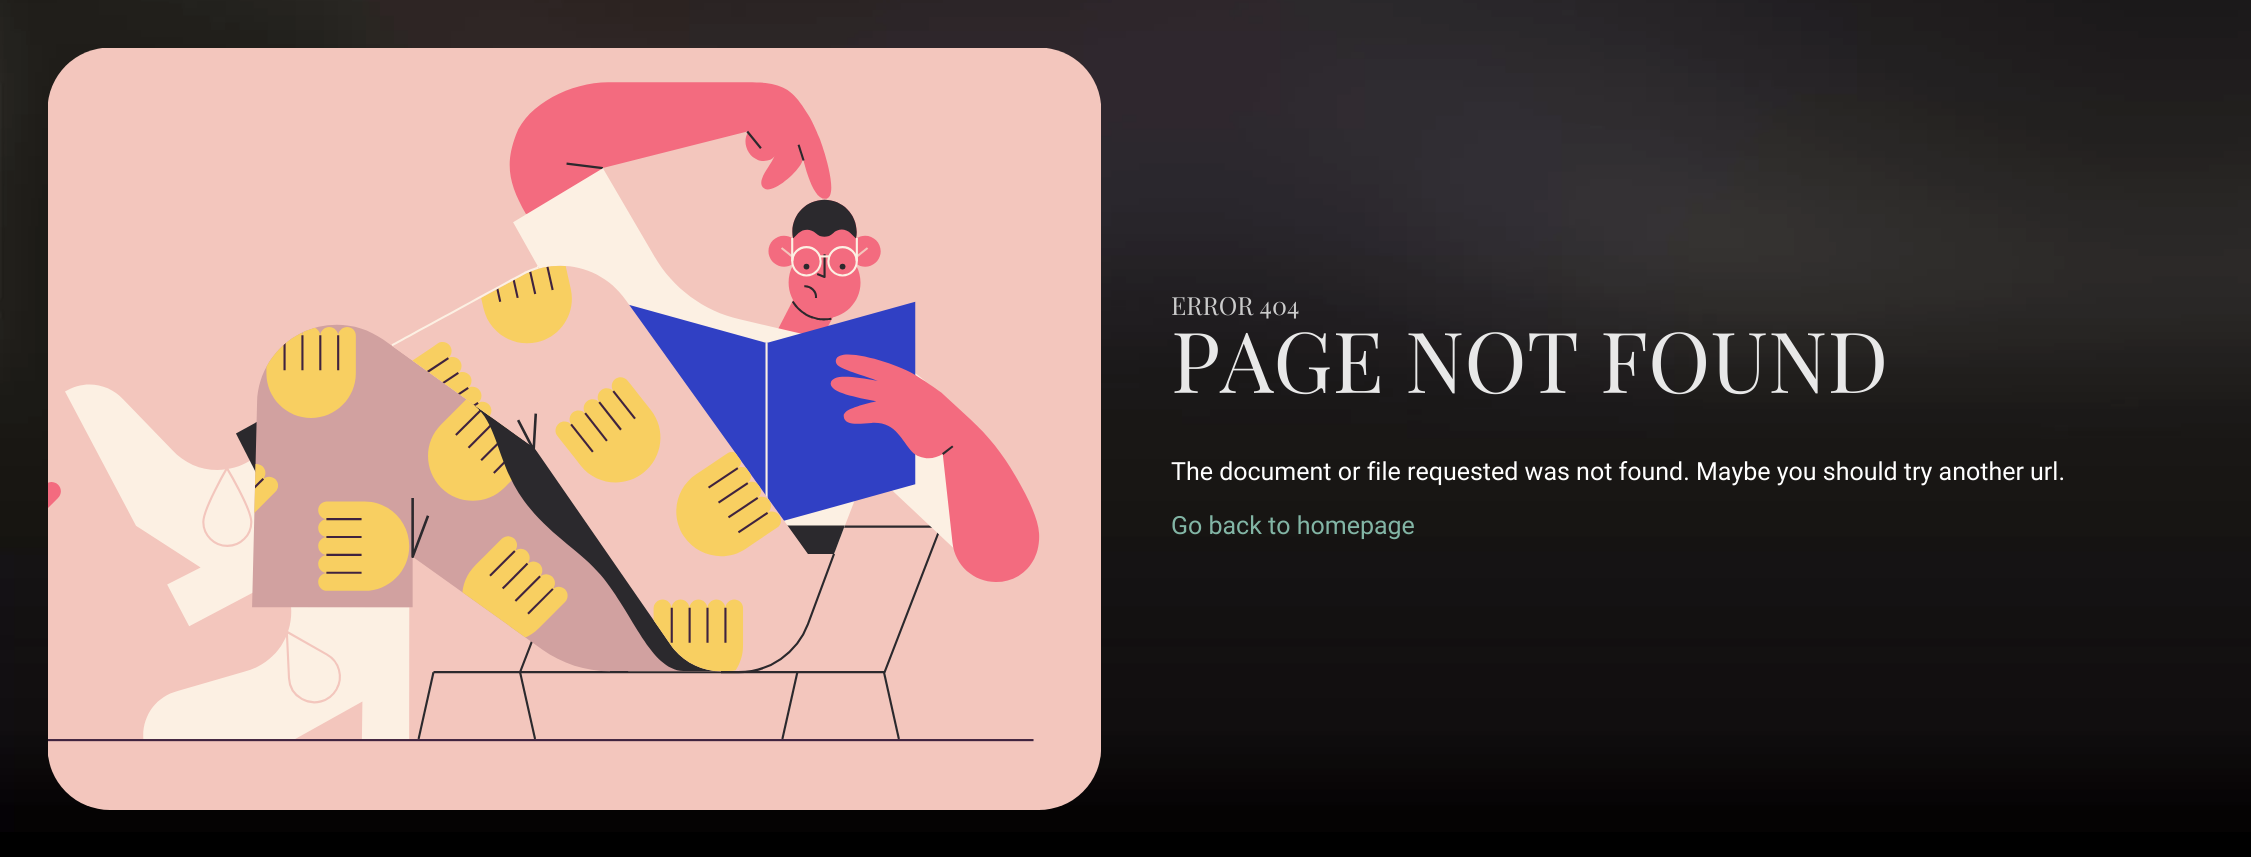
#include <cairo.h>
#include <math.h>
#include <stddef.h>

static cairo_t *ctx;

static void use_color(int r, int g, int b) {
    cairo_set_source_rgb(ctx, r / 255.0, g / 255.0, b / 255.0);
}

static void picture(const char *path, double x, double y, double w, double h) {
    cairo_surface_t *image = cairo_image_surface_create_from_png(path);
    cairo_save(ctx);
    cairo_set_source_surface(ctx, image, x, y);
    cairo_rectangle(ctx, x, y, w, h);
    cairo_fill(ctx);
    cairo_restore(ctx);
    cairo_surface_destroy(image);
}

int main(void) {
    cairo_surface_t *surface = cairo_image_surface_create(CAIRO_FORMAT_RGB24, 2251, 857);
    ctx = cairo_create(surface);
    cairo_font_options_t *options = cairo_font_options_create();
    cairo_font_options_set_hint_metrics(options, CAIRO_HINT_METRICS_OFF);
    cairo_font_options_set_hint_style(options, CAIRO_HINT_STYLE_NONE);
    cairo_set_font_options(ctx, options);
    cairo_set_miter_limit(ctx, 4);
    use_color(0, 0, 0);
    cairo_paint(ctx);
    picture("img1.png", 0, 0, 2251, 832);
    picture("img2.png", 48, 48, 1053, 762);
    cairo_select_font_face(ctx, "Playfair Display", CAIRO_FONT_SLANT_NORMAL, CAIRO_FONT_WEIGHT_NORMAL);
    cairo_set_font_size(ctx, 25);
    use_color(204, 204, 204);
    cairo_move_to(ctx, 1171, 315);
    cairo_show_text(ctx, "ERROR 404");
    cairo_set_font_size(ctx, 84.25);
    use_color(232, 232, 232);
    cairo_move_to(ctx, 1171, 393);
    cairo_show_text(ctx, "PAGE NOT FOUND");
    cairo_select_font_face(ctx, "Roboto", CAIRO_FONT_SLANT_NORMAL, CAIRO_FONT_WEIGHT_NORMAL);
    cairo_set_font_size(ctx, 25);
    use_color(255, 255, 255);
    cairo_move_to(ctx, 1171, 480);
    cairo_show_text(ctx, "The document or file requested was not found. Maybe you should try another url.");
    use_color(130, 181, 165);
    cairo_move_to(ctx, 1171, 534);
    cairo_show_text(ctx, "Go back to homepage");
    cairo_surface_write_to_png(surface, "result.png");
    cairo_font_options_destroy(options);
    cairo_destroy(ctx);
    cairo_surface_destroy(surface);
    return 0;
}
